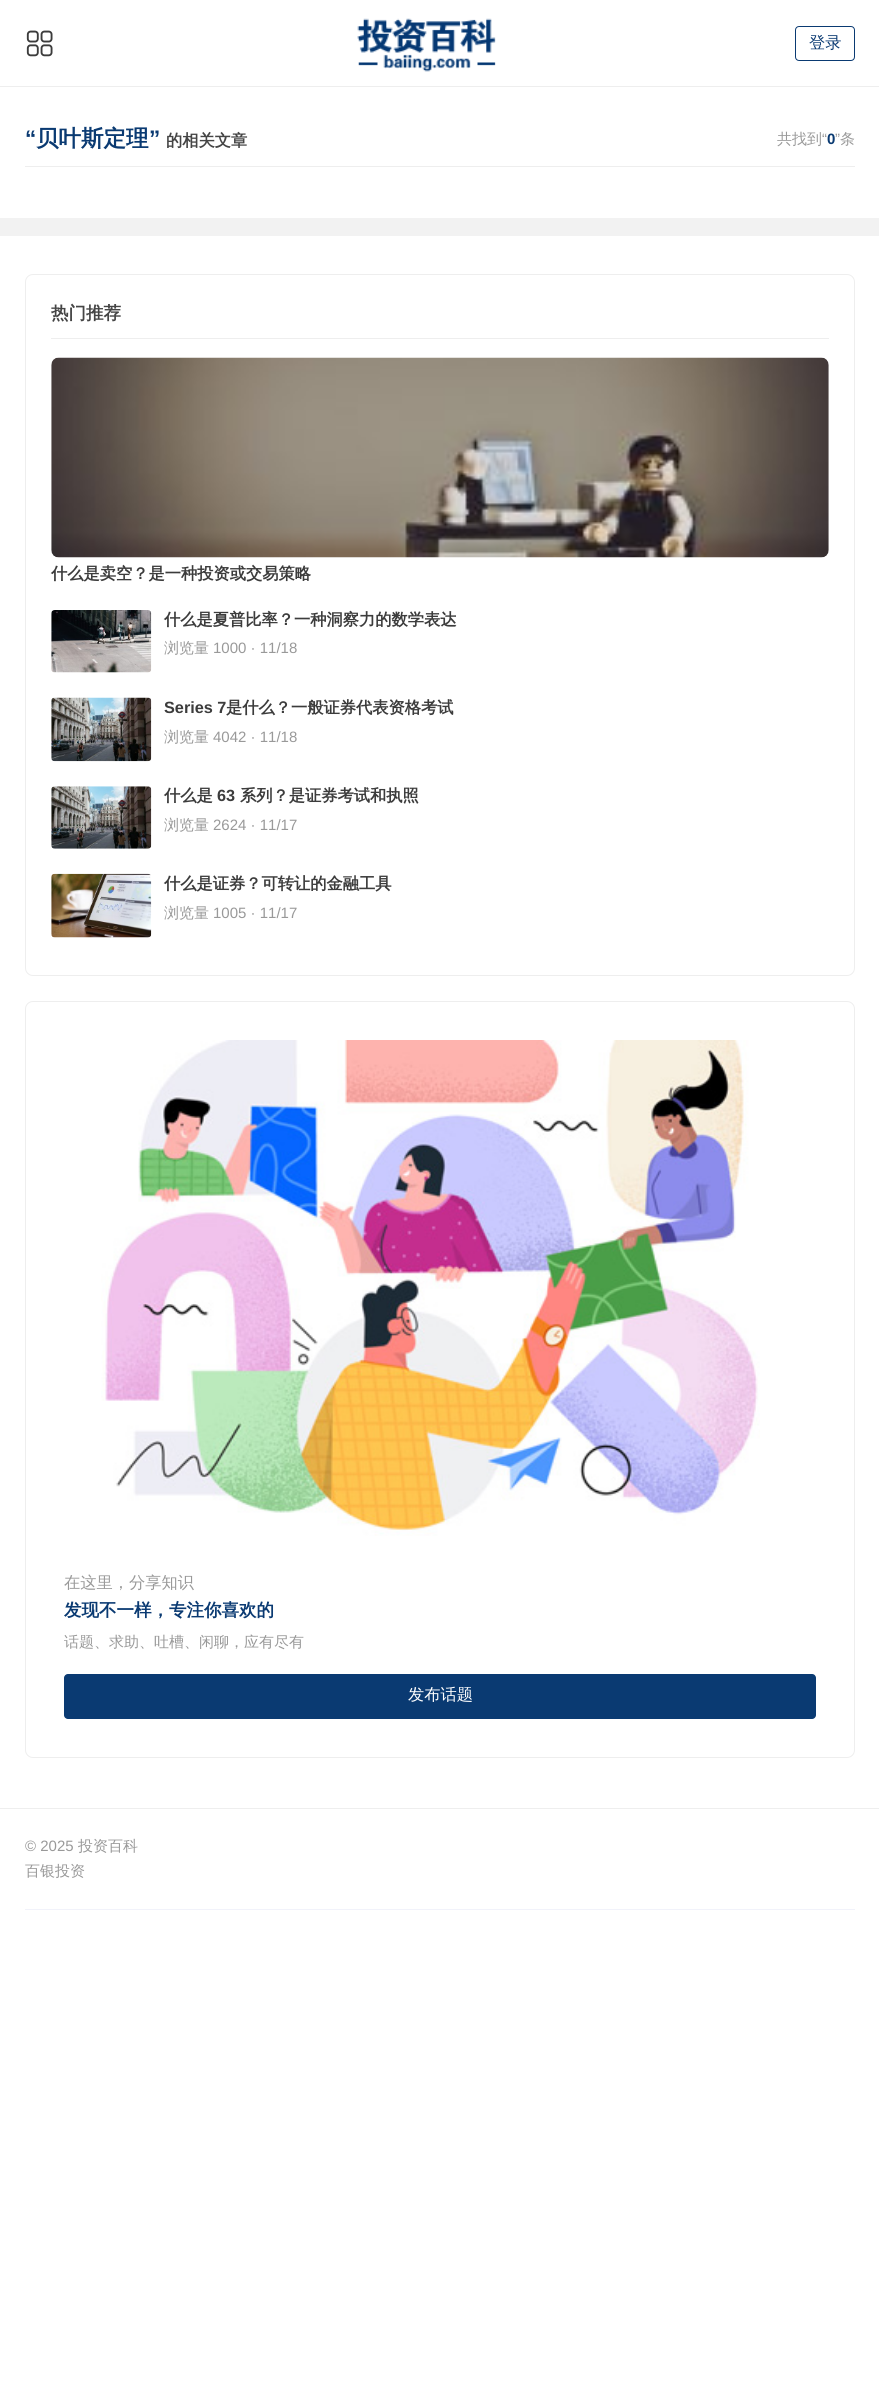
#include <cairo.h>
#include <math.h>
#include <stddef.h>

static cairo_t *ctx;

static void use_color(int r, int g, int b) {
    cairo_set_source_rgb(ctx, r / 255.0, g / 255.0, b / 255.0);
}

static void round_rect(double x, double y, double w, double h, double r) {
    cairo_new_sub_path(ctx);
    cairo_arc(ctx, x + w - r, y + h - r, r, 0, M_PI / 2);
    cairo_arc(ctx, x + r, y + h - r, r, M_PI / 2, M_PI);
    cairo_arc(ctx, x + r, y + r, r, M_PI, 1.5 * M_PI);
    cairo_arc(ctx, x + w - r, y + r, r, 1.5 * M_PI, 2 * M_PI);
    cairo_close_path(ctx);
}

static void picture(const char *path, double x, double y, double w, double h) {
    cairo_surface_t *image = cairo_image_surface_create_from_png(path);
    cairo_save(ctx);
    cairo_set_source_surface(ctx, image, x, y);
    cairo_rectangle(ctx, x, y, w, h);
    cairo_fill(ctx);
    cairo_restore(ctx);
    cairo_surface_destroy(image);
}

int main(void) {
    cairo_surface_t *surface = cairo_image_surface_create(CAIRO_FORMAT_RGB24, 879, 2383);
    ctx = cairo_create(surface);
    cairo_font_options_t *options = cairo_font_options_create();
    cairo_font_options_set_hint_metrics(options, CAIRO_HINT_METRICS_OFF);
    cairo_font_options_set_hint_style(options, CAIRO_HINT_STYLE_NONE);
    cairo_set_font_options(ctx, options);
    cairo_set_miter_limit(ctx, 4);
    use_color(255, 255, 255);
    cairo_paint(ctx);
    use_color(238, 238, 238);
    cairo_rectangle(ctx, 0, 86, 879, 1);
    cairo_fill(ctx);
    picture("img1.png", 26, 30, 27, 27);
    picture("img2.png", 357, 18, 139, 54);
    round_rect(795.5, 26.5, 59, 34, 3.5);
    use_color(10, 58, 114);
    cairo_set_line_width(ctx, 1);
    cairo_stroke(ctx);
    cairo_select_font_face(ctx, "WenQuanYi Zen Hei Medium", CAIRO_FONT_SLANT_NORMAL, CAIRO_FONT_WEIGHT_NORMAL);
    cairo_set_font_size(ctx, 16.25);
    cairo_move_to(ctx, 809, 48);
    cairo_show_text(ctx, "登录");
    use_color(238, 238, 238);
    cairo_rectangle(ctx, 25, 166, 830, 1);
    cairo_fill(ctx);
    cairo_select_font_face(ctx, "Liberation Sans", CAIRO_FONT_SLANT_NORMAL, CAIRO_FONT_WEIGHT_BOLD);
    cairo_set_font_size(ctx, 22.5);
    use_color(10, 58, 114);
    cairo_move_to(ctx, 25, 146);
    cairo_show_text(ctx, "“");
    cairo_select_font_face(ctx, "WenQuanYi Zen Hei", CAIRO_FONT_SLANT_NORMAL, CAIRO_FONT_WEIGHT_BOLD);
    cairo_move_to(ctx, 36, 146);
    cairo_show_text(ctx, "贝叶斯定理");
    cairo_select_font_face(ctx, "Liberation Sans", CAIRO_FONT_SLANT_NORMAL, CAIRO_FONT_WEIGHT_BOLD);
    cairo_move_to(ctx, 149, 146);
    cairo_show_text(ctx, "”");
    cairo_select_font_face(ctx, "WenQuanYi Zen Hei", CAIRO_FONT_SLANT_NORMAL, CAIRO_FONT_WEIGHT_BOLD);
    cairo_set_font_size(ctx, 16.25);
    use_color(69, 69, 69);
    cairo_move_to(ctx, 166, 146);
    cairo_show_text(ctx, "的相关文章");
    cairo_select_font_face(ctx, "WenQuanYi Zen Hei Medium", CAIRO_FONT_SLANT_NORMAL, CAIRO_FONT_WEIGHT_NORMAL);
    cairo_set_font_size(ctx, 15);
    use_color(153, 153, 153);
    cairo_move_to(ctx, 777, 144);
    cairo_show_text(ctx, "共找到");
    cairo_select_font_face(ctx, "Liberation Sans", CAIRO_FONT_SLANT_NORMAL, CAIRO_FONT_WEIGHT_NORMAL);
    cairo_move_to(ctx, 822, 144);
    cairo_show_text(ctx, "“");
    cairo_select_font_face(ctx, "Liberation Sans", CAIRO_FONT_SLANT_NORMAL, CAIRO_FONT_WEIGHT_BOLD);
    use_color(10, 58, 114);
    cairo_move_to(ctx, 827, 144);
    cairo_show_text(ctx, "0");
    cairo_select_font_face(ctx, "Liberation Sans", CAIRO_FONT_SLANT_NORMAL, CAIRO_FONT_WEIGHT_NORMAL);
    use_color(153, 153, 153);
    cairo_move_to(ctx, 835, 144);
    cairo_show_text(ctx, "”");
    cairo_select_font_face(ctx, "WenQuanYi Zen Hei Medium", CAIRO_FONT_SLANT_NORMAL, CAIRO_FONT_WEIGHT_NORMAL);
    cairo_move_to(ctx, 840, 144);
    cairo_show_text(ctx, "条");
    use_color(242, 242, 242);
    cairo_rectangle(ctx, 0, 218, 879, 18);
    cairo_fill(ctx);
    round_rect(25.5, 274.5, 829, 701, 7.5);
    use_color(238, 238, 238);
    cairo_stroke(ctx);
    cairo_rectangle(ctx, 51, 338, 778, 1);
    cairo_fill(ctx);
    cairo_select_font_face(ctx, "WenQuanYi Zen Hei", CAIRO_FONT_SLANT_NORMAL, CAIRO_FONT_WEIGHT_BOLD);
    cairo_set_font_size(ctx, 17.5);
    use_color(69, 69, 69);
    cairo_move_to(ctx, 51, 319);
    cairo_show_text(ctx, "热门推荐");
    picture("img3.png", 51, 357, 778, 201);
    cairo_set_font_size(ctx, 16.25);
    use_color(60, 60, 60);
    cairo_move_to(ctx, 51, 579);
    cairo_show_text(ctx, "什么是卖空？是一种投资或交易策略");
    picture("img4.png", 51, 610, 101, 63);
    cairo_move_to(ctx, 164, 625);
    cairo_show_text(ctx, "什么是夏普比率？一种洞察力的数学表达");
    cairo_select_font_face(ctx, "WenQuanYi Zen Hei Medium", CAIRO_FONT_SLANT_NORMAL, CAIRO_FONT_WEIGHT_NORMAL);
    cairo_set_font_size(ctx, 15);
    use_color(153, 153, 153);
    cairo_move_to(ctx, 164, 653);
    cairo_show_text(ctx, "浏览量");
    cairo_select_font_face(ctx, "Liberation Sans", CAIRO_FONT_SLANT_NORMAL, CAIRO_FONT_WEIGHT_NORMAL);
    cairo_move_to(ctx, 213, 653);
    cairo_show_text(ctx, "1000 · 11/18");
    picture("img5.png", 51, 697, 101, 65);
    cairo_select_font_face(ctx, "Liberation Sans", CAIRO_FONT_SLANT_NORMAL, CAIRO_FONT_WEIGHT_BOLD);
    cairo_set_font_size(ctx, 16.25);
    use_color(60, 60, 60);
    cairo_move_to(ctx, 164, 713);
    cairo_show_text(ctx, "Series 7");
    cairo_select_font_face(ctx, "WenQuanYi Zen Hei", CAIRO_FONT_SLANT_NORMAL, CAIRO_FONT_WEIGHT_BOLD);
    cairo_move_to(ctx, 226, 713);
    cairo_show_text(ctx, "是什么？一般证券代表资格考试");
    cairo_select_font_face(ctx, "WenQuanYi Zen Hei Medium", CAIRO_FONT_SLANT_NORMAL, CAIRO_FONT_WEIGHT_NORMAL);
    cairo_set_font_size(ctx, 15);
    use_color(153, 153, 153);
    cairo_move_to(ctx, 164, 742);
    cairo_show_text(ctx, "浏览量");
    cairo_select_font_face(ctx, "Liberation Sans", CAIRO_FONT_SLANT_NORMAL, CAIRO_FONT_WEIGHT_NORMAL);
    cairo_move_to(ctx, 213, 742);
    cairo_show_text(ctx, "4042 · 11/18");
    picture("img6.png", 51, 786, 101, 63);
    cairo_select_font_face(ctx, "WenQuanYi Zen Hei", CAIRO_FONT_SLANT_NORMAL, CAIRO_FONT_WEIGHT_BOLD);
    cairo_set_font_size(ctx, 16.25);
    use_color(60, 60, 60);
    cairo_move_to(ctx, 164, 801);
    cairo_show_text(ctx, "什么是");
    cairo_select_font_face(ctx, "Liberation Sans", CAIRO_FONT_SLANT_NORMAL, CAIRO_FONT_WEIGHT_BOLD);
    cairo_move_to(ctx, 217, 801);
    cairo_show_text(ctx, "63");
    cairo_select_font_face(ctx, "WenQuanYi Zen Hei", CAIRO_FONT_SLANT_NORMAL, CAIRO_FONT_WEIGHT_BOLD);
    cairo_move_to(ctx, 240, 801);
    cairo_show_text(ctx, "系列？是证券考试和执照");
    cairo_select_font_face(ctx, "WenQuanYi Zen Hei Medium", CAIRO_FONT_SLANT_NORMAL, CAIRO_FONT_WEIGHT_NORMAL);
    cairo_set_font_size(ctx, 15);
    use_color(153, 153, 153);
    cairo_move_to(ctx, 164, 830);
    cairo_show_text(ctx, "浏览量");
    cairo_select_font_face(ctx, "Liberation Sans", CAIRO_FONT_SLANT_NORMAL, CAIRO_FONT_WEIGHT_NORMAL);
    cairo_move_to(ctx, 213, 830);
    cairo_show_text(ctx, "2624 · 11/17");
    picture("img7.png", 51, 873, 101, 65);
    cairo_select_font_face(ctx, "WenQuanYi Zen Hei", CAIRO_FONT_SLANT_NORMAL, CAIRO_FONT_WEIGHT_BOLD);
    cairo_set_font_size(ctx, 16.25);
    use_color(60, 60, 60);
    cairo_move_to(ctx, 164, 889);
    cairo_show_text(ctx, "什么是证券？可转让的金融工具");
    cairo_select_font_face(ctx, "WenQuanYi Zen Hei Medium", CAIRO_FONT_SLANT_NORMAL, CAIRO_FONT_WEIGHT_NORMAL);
    cairo_set_font_size(ctx, 15);
    use_color(153, 153, 153);
    cairo_move_to(ctx, 164, 918);
    cairo_show_text(ctx, "浏览量");
    cairo_select_font_face(ctx, "Liberation Sans", CAIRO_FONT_SLANT_NORMAL, CAIRO_FONT_WEIGHT_NORMAL);
    cairo_move_to(ctx, 213, 918);
    cairo_show_text(ctx, "1005 · 11/17");
    round_rect(25.5, 1001.5, 829, 756, 7.5);
    use_color(238, 238, 238);
    cairo_stroke(ctx);
    picture("img8.png", 101, 1040, 659, 496);
    cairo_select_font_face(ctx, "WenQuanYi Zen Hei Medium", CAIRO_FONT_SLANT_NORMAL, CAIRO_FONT_WEIGHT_NORMAL);
    cairo_set_font_size(ctx, 16.25);
    use_color(153, 153, 153);
    cairo_move_to(ctx, 64, 1588);
    cairo_show_text(ctx, "在这里，分享知识");
    cairo_select_font_face(ctx, "WenQuanYi Zen Hei", CAIRO_FONT_SLANT_NORMAL, CAIRO_FONT_WEIGHT_BOLD);
    cairo_set_font_size(ctx, 17.5);
    use_color(10, 58, 114);
    cairo_move_to(ctx, 64, 1616);
    cairo_show_text(ctx, "发现不一样，专注你喜欢的");
    cairo_select_font_face(ctx, "WenQuanYi Zen Hei Medium", CAIRO_FONT_SLANT_NORMAL, CAIRO_FONT_WEIGHT_NORMAL);
    cairo_set_font_size(ctx, 15);
    use_color(153, 153, 153);
    cairo_move_to(ctx, 64, 1647);
    cairo_show_text(ctx, "话题、求助、吐槽、闲聊，应有尽有");
    use_color(10, 58, 114);
    round_rect(64, 1674, 752, 45, 4);
    cairo_fill(ctx);
    cairo_set_font_size(ctx, 16.25);
    use_color(255, 255, 255);
    cairo_move_to(ctx, 408, 1700);
    cairo_show_text(ctx, "发布话题");
    use_color(238, 238, 238);
    cairo_rectangle(ctx, 0, 1808, 879, 1);
    cairo_fill(ctx);
    use_color(241, 242, 250);
    cairo_rectangle(ctx, 25, 1909, 830, 1);
    cairo_fill(ctx);
    cairo_select_font_face(ctx, "Liberation Sans", CAIRO_FONT_SLANT_NORMAL, CAIRO_FONT_WEIGHT_NORMAL);
    cairo_set_font_size(ctx, 15);
    use_color(153, 153, 153);
    cairo_move_to(ctx, 25, 1851);
    cairo_show_text(ctx, "© 2025");
    cairo_select_font_face(ctx, "WenQuanYi Zen Hei Medium", CAIRO_FONT_SLANT_NORMAL, CAIRO_FONT_WEIGHT_NORMAL);
    cairo_move_to(ctx, 78, 1851);
    cairo_show_text(ctx, "投资百科");
    cairo_move_to(ctx, 25, 1876);
    cairo_show_text(ctx, "百银投资");
    cairo_surface_write_to_png(surface, "result.png");
    cairo_font_options_destroy(options);
    cairo_destroy(ctx);
    cairo_surface_destroy(surface);
    return 0;
}
